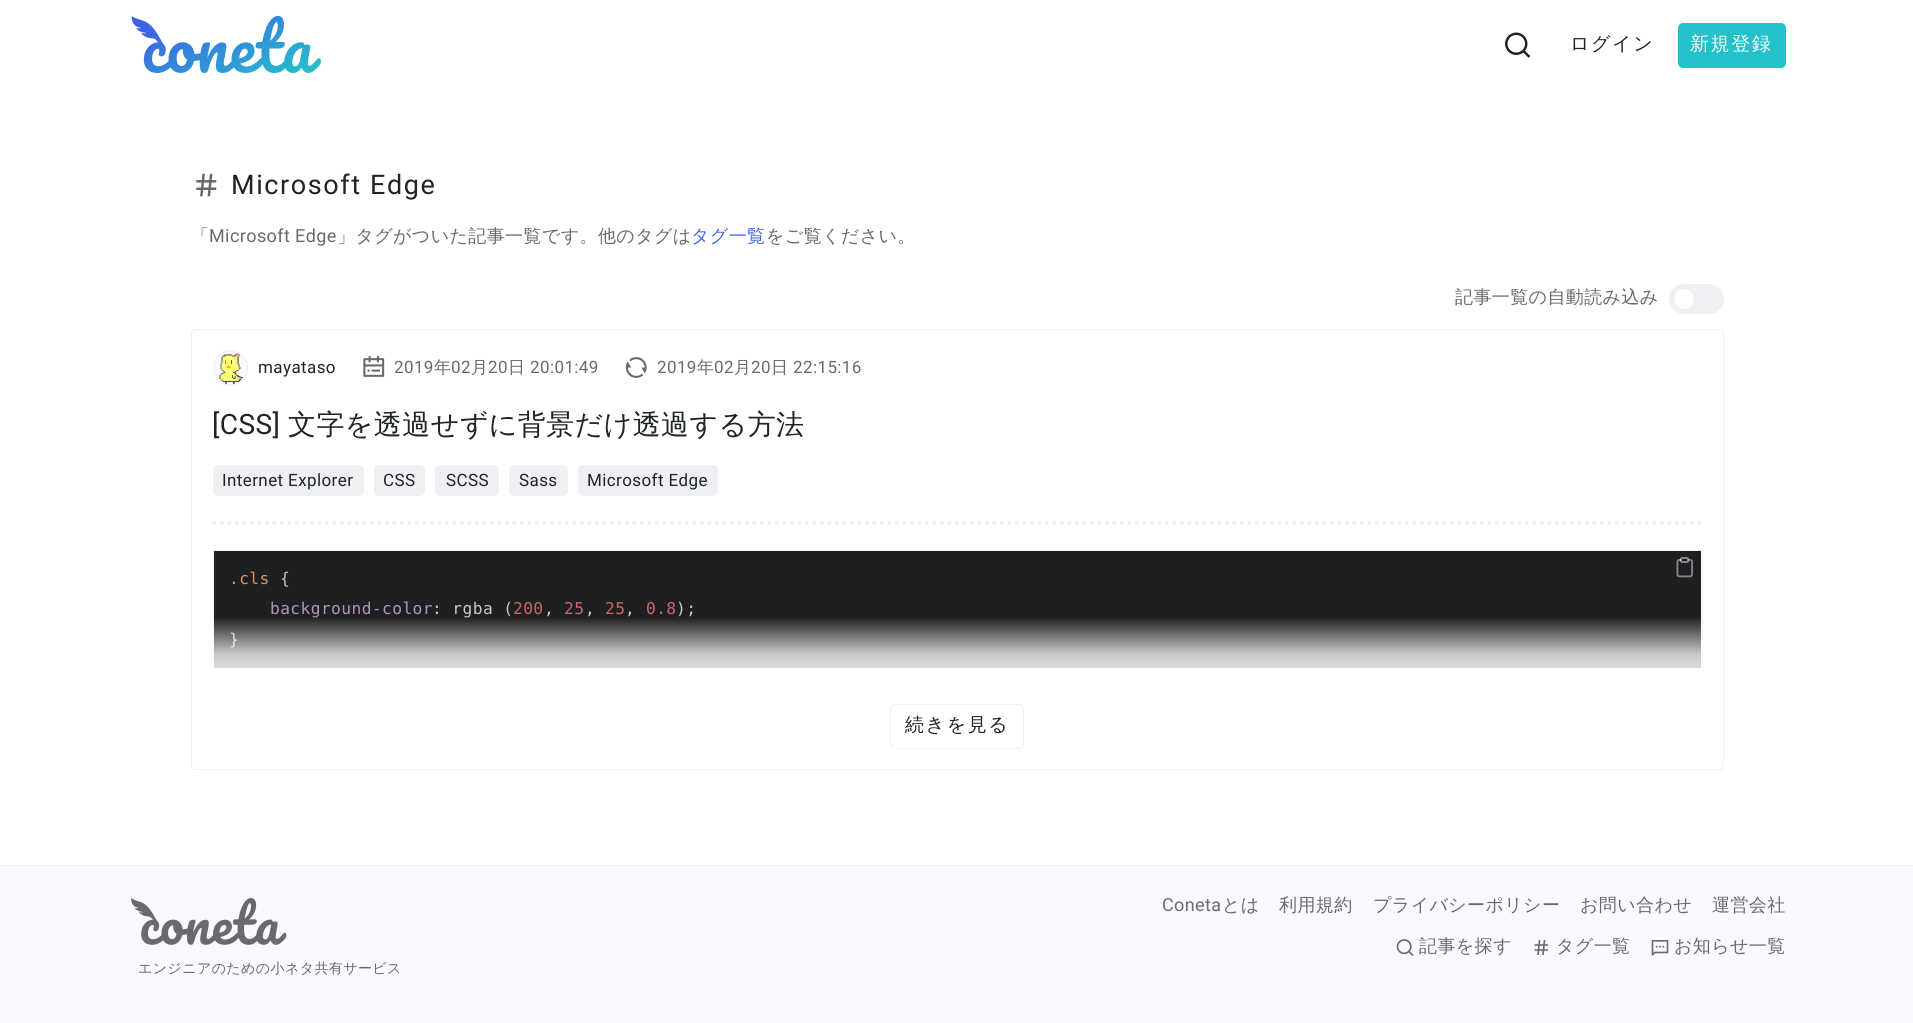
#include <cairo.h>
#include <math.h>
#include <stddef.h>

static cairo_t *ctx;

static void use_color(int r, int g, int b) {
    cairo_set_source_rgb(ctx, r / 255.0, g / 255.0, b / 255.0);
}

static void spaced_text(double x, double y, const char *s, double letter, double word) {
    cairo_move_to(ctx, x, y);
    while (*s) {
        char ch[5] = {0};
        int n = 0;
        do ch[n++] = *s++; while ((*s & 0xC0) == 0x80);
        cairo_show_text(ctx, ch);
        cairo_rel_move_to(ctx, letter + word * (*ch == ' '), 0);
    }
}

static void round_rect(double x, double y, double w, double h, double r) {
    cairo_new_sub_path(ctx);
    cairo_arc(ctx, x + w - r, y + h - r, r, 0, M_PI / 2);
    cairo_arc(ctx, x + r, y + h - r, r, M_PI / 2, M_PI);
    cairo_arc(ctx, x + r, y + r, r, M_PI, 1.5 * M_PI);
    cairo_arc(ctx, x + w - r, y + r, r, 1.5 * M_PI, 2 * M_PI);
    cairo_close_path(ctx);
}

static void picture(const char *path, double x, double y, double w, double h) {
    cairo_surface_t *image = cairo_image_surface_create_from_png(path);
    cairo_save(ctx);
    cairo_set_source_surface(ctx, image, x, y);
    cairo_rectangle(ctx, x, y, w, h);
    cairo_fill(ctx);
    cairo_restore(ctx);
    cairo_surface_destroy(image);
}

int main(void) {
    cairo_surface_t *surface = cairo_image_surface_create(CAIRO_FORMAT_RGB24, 1913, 1023);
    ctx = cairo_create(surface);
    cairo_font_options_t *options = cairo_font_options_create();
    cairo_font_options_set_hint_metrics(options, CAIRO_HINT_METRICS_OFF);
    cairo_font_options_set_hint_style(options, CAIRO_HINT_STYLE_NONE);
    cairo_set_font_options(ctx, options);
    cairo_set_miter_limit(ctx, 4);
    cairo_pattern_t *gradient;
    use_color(249, 250, 253);
    cairo_paint(ctx);
    use_color(255, 255, 255);
    cairo_rectangle(ctx, 0, 0, 1913, 865);
    cairo_fill(ctx);
    picture("img1.png", 131, 15, 190, 58);
    picture("img2.png", 1505, 32, 26, 26);
    cairo_select_font_face(ctx, "WenQuanYi Zen Hei Medium", CAIRO_FONT_SLANT_NORMAL, CAIRO_FONT_WEIGHT_NORMAL);
    cairo_set_font_size(ctx, 19);
    use_color(31, 37, 39);
    spaced_text(1570, 50, "ログイン", 1.6, 0);
    use_color(36, 193, 203);
    round_rect(1678, 23, 108, 45, 5);
    cairo_fill(ctx);
    use_color(249, 250, 253);
    spaced_text(1690, 50, "新規登録", 1.6, 0);
    picture("img3.png", 196, 173, 21, 24);
    cairo_select_font_face(ctx, "Roboto", CAIRO_FONT_SLANT_NORMAL, CAIRO_FONT_WEIGHT_NORMAL);
    cairo_set_font_size(ctx, 27);
    use_color(31, 37, 39);
    spaced_text(231, 194, "Microsoft Edge", 1.6, 0);
    cairo_select_font_face(ctx, "WenQuanYi Zen Hei Medium", CAIRO_FONT_SLANT_NORMAL, CAIRO_FONT_WEIGHT_NORMAL);
    cairo_set_font_size(ctx, 18);
    use_color(105, 106, 109);
    spaced_text(191, 242, "「", 0.4, 0);
    cairo_select_font_face(ctx, "Roboto", CAIRO_FONT_SLANT_NORMAL, CAIRO_FONT_WEIGHT_NORMAL);
    spaced_text(209, 242, "Microsoft Edge", 0.4, 0);
    cairo_select_font_face(ctx, "WenQuanYi Zen Hei Medium", CAIRO_FONT_SLANT_NORMAL, CAIRO_FONT_WEIGHT_NORMAL);
    spaced_text(337, 242, "」タグがついた記事一覧です。他のタグは", 0.4, 0);
    use_color(62, 99, 227);
    spaced_text(691, 242, "タグ一覧", 0.4, 0);
    use_color(105, 106, 109);
    spaced_text(766, 242, "をご覧ください。", 0.4, 0);
    spaced_text(1455, 303, "記事一覧の自動読み込み", 0.4, 0);
    use_color(239, 240, 243);
    round_rect(1669, 284, 55, 30, 15);
    cairo_fill(ctx);
    use_color(255, 255, 255);
    cairo_arc(ctx, 1684, 299, 10, 0, 2 * M_PI);
    cairo_fill(ctx);
    round_rect(191.5, 329.5, 1532, 440, 4.5);
    use_color(239, 240, 243);
    cairo_set_line_width(ctx, 1);
    cairo_stroke(ctx);
    use_color(249, 250, 253);
    round_rect(213.5, 350.5, 34, 35, 17);
    cairo_fill_preserve(ctx);
    use_color(239, 240, 243);
    cairo_stroke(ctx);
    picture("img4.png", 219, 353, 24, 31);
    cairo_select_font_face(ctx, "Roboto", CAIRO_FONT_SLANT_NORMAL, CAIRO_FONT_WEIGHT_NORMAL);
    cairo_set_font_size(ctx, 17);
    use_color(31, 37, 39);
    spaced_text(258, 373, "mayataso", 0.4, 0);
    picture("img5.png", 363, 356, 22, 21);
    use_color(105, 106, 109);
    spaced_text(394, 373, "2019", 0.4, 0);
    cairo_select_font_face(ctx, "WenQuanYi Zen Hei Medium", CAIRO_FONT_SLANT_NORMAL, CAIRO_FONT_WEIGHT_NORMAL);
    spaced_text(434, 373, "年", 0.4, 0);
    cairo_select_font_face(ctx, "Roboto", CAIRO_FONT_SLANT_NORMAL, CAIRO_FONT_WEIGHT_NORMAL);
    spaced_text(451, 373, "02", 0.4, 0);
    cairo_select_font_face(ctx, "WenQuanYi Zen Hei Medium", CAIRO_FONT_SLANT_NORMAL, CAIRO_FONT_WEIGHT_NORMAL);
    spaced_text(471, 373, "月", 0.4, 0);
    cairo_select_font_face(ctx, "Roboto", CAIRO_FONT_SLANT_NORMAL, CAIRO_FONT_WEIGHT_NORMAL);
    spaced_text(488, 373, "20", 0.4, 0);
    cairo_select_font_face(ctx, "WenQuanYi Zen Hei Medium", CAIRO_FONT_SLANT_NORMAL, CAIRO_FONT_WEIGHT_NORMAL);
    spaced_text(508, 373, "日", 0.4, 0);
    cairo_select_font_face(ctx, "Roboto", CAIRO_FONT_SLANT_NORMAL, CAIRO_FONT_WEIGHT_NORMAL);
    spaced_text(530, 373, "20:01:49", 0.4, 0);
    picture("img6.png", 625, 357, 22, 21);
    spaced_text(657, 373, "2019", 0.4, 0);
    cairo_select_font_face(ctx, "WenQuanYi Zen Hei Medium", CAIRO_FONT_SLANT_NORMAL, CAIRO_FONT_WEIGHT_NORMAL);
    spaced_text(697, 373, "年", 0.4, 0);
    cairo_select_font_face(ctx, "Roboto", CAIRO_FONT_SLANT_NORMAL, CAIRO_FONT_WEIGHT_NORMAL);
    spaced_text(714, 373, "02", 0.4, 0);
    cairo_select_font_face(ctx, "WenQuanYi Zen Hei Medium", CAIRO_FONT_SLANT_NORMAL, CAIRO_FONT_WEIGHT_NORMAL);
    spaced_text(734, 373, "月", 0.4, 0);
    cairo_select_font_face(ctx, "Roboto", CAIRO_FONT_SLANT_NORMAL, CAIRO_FONT_WEIGHT_NORMAL);
    spaced_text(751, 373, "20", 0.4, 0);
    cairo_select_font_face(ctx, "WenQuanYi Zen Hei Medium", CAIRO_FONT_SLANT_NORMAL, CAIRO_FONT_WEIGHT_NORMAL);
    spaced_text(771, 373, "日", 0.4, 0);
    cairo_select_font_face(ctx, "Roboto", CAIRO_FONT_SLANT_NORMAL, CAIRO_FONT_WEIGHT_NORMAL);
    spaced_text(793, 373, "22:15:16", 0.4, 0);
    cairo_set_font_size(ctx, 28);
    use_color(31, 37, 39);
    spaced_text(212, 434, "[CSS]", 0.4, 0);
    cairo_select_font_face(ctx, "WenQuanYi Zen Hei Medium", CAIRO_FONT_SLANT_NORMAL, CAIRO_FONT_WEIGHT_NORMAL);
    spaced_text(288, 434, "文字を透過せずに背景だけ透過する方法", 0.4, 0);
    use_color(239, 240, 243);
    round_rect(213, 465, 151, 31, 5);
    cairo_fill(ctx);
    cairo_select_font_face(ctx, "Roboto", CAIRO_FONT_SLANT_NORMAL, CAIRO_FONT_WEIGHT_NORMAL);
    cairo_set_font_size(ctx, 17);
    use_color(31, 37, 39);
    spaced_text(222, 486, "Internet Explorer", 0.4, 0);
    use_color(239, 240, 243);
    round_rect(374, 465, 51, 31, 5);
    cairo_fill(ctx);
    use_color(31, 37, 39);
    spaced_text(383, 486, "CSS", 0.4, 0);
    use_color(239, 240, 243);
    round_rect(435, 465, 64, 31, 5);
    cairo_fill(ctx);
    use_color(31, 37, 39);
    spaced_text(446, 486, "SCSS", 0.4, 0);
    use_color(239, 240, 243);
    round_rect(509, 465, 59, 31, 5);
    cairo_fill(ctx);
    use_color(31, 37, 39);
    spaced_text(519, 486, "Sass", 0.4, 0);
    use_color(239, 240, 243);
    round_rect(578, 465, 140, 31, 5);
    cairo_fill(ctx);
    use_color(31, 37, 39);
    spaced_text(587, 486, "Microsoft Edge", 0.4, 0);
    cairo_new_path(ctx);
    cairo_move_to(ctx, 212.5, 523);
    cairo_line_to(ctx, 1702.5, 523);
    use_color(239, 240, 243);
    cairo_set_line_width(ctx, 3.8);
    cairo_set_dash(ctx, (double[]){3.75, 3.75}, 2, 0);
    cairo_stroke(ctx);
    cairo_rectangle(ctx, 213.5, 550.5, 1489, 118);
    cairo_set_line_width(ctx, 1);
    cairo_set_dash(ctx, NULL, 0, 0);
    cairo_stroke(ctx);
    use_color(29, 31, 33);
    cairo_rectangle(ctx, 214, 551, 1487, 117);
    cairo_fill(ctx);
    picture("img7.png", 1676, 557, 17, 21);
    cairo_select_font_face(ctx, "DejaVu Sans Mono", CAIRO_FONT_SLANT_NORMAL, CAIRO_FONT_WEIGHT_NORMAL);
    cairo_set_font_size(ctx, 16.25);
    use_color(222, 147, 95);
    spaced_text(229, 584, ".cls", 0.4, 0);
    use_color(197, 200, 198);
    spaced_text(280, 584, "{", 0.4, 0);
    use_color(178, 148, 187);
    spaced_text(270, 614, "background-color", 0.4, 0);
    use_color(197, 200, 198);
    spaced_text(432, 614, ": rgba (", 0.4, 0);
    use_color(204, 102, 102);
    spaced_text(513, 614, "200", 0.4, 0);
    use_color(197, 200, 198);
    spaced_text(544, 614, ",", 0.4, 0);
    use_color(204, 102, 102);
    spaced_text(564, 614, "25", 0.4, 0);
    use_color(197, 200, 198);
    spaced_text(585, 614, ",", 0.4, 0);
    use_color(204, 102, 102);
    spaced_text(605, 614, "25", 0.4, 0);
    use_color(197, 200, 198);
    spaced_text(625, 614, ",", 0.4, 0);
    use_color(204, 102, 102);
    spaced_text(646, 614, "0.8", 0.4, 0);
    use_color(197, 200, 198);
    spaced_text(676, 614, ");", 0.4, 0);
    spaced_text(229, 645, "}", 0.4, 0);
    gradient = cairo_pattern_create_linear(958, 617, 958, 691);
    cairo_pattern_add_color_stop_rgba(gradient, 0, 1, 1, 1, 0);
    cairo_pattern_add_color_stop_rgba(gradient, 0.5, 1, 1, 1, 0.75);
    cairo_pattern_add_color_stop_rgba(gradient, 1, 1, 1, 1, 1);
    cairo_set_source(ctx, gradient);
    cairo_pattern_destroy(gradient);
    cairo_rectangle(ctx, 213, 618, 1490, 51);
    cairo_fill(ctx);
    round_rect(890.5, 704.5, 133, 44, 4.5);
    use_color(239, 240, 243);
    cairo_stroke(ctx);
    cairo_select_font_face(ctx, "WenQuanYi Zen Hei Medium", CAIRO_FONT_SLANT_NORMAL, CAIRO_FONT_WEIGHT_NORMAL);
    cairo_set_font_size(ctx, 19);
    use_color(31, 37, 39);
    spaced_text(905, 731, "続きを見る", 1.6, 0);
    use_color(239, 240, 243);
    cairo_rectangle(ctx, 0, 865, 1913, 1);
    cairo_fill(ctx);
    cairo_select_font_face(ctx, "Roboto", CAIRO_FONT_SLANT_NORMAL, CAIRO_FONT_WEIGHT_NORMAL);
    cairo_set_font_size(ctx, 18);
    use_color(105, 106, 109);
    spaced_text(1162, 911, "Coneta", 0.4, 0);
    cairo_select_font_face(ctx, "WenQuanYi Zen Hei Medium", CAIRO_FONT_SLANT_NORMAL, CAIRO_FONT_WEIGHT_NORMAL);
    spaced_text(1222, 911, "とは", 0.4, 0);
    spaced_text(1279, 911, "利用規約", 0.4, 0);
    spaced_text(1373, 911, "プライバシーポリシー", 0.4, 0);
    spaced_text(1580, 911, "お問い合わせ", 0.4, 0);
    spaced_text(1712, 911, "運営会社", 0.4, 0);
    picture("img8.png", 1396, 939, 18, 17);
    spaced_text(1419, 952, "記事を探す", 0.4, 0);
    picture("img9.png", 1534, 940, 14, 15);
    spaced_text(1556, 952, "タグ一覧", 0.4, 0);
    picture("img10.png", 1651, 940, 18, 17);
    spaced_text(1674, 952, "お知らせ一覧", 0.4, 0);
    picture("img11.png", 131, 898, 156, 47);
    cairo_set_font_size(ctx, 14);
    spaced_text(138, 973, "エンジニアのための小ネタ共有サービス", 0.4, 0);
    cairo_surface_write_to_png(surface, "result.png");
    cairo_font_options_destroy(options);
    cairo_destroy(ctx);
    cairo_surface_destroy(surface);
    return 0;
}
